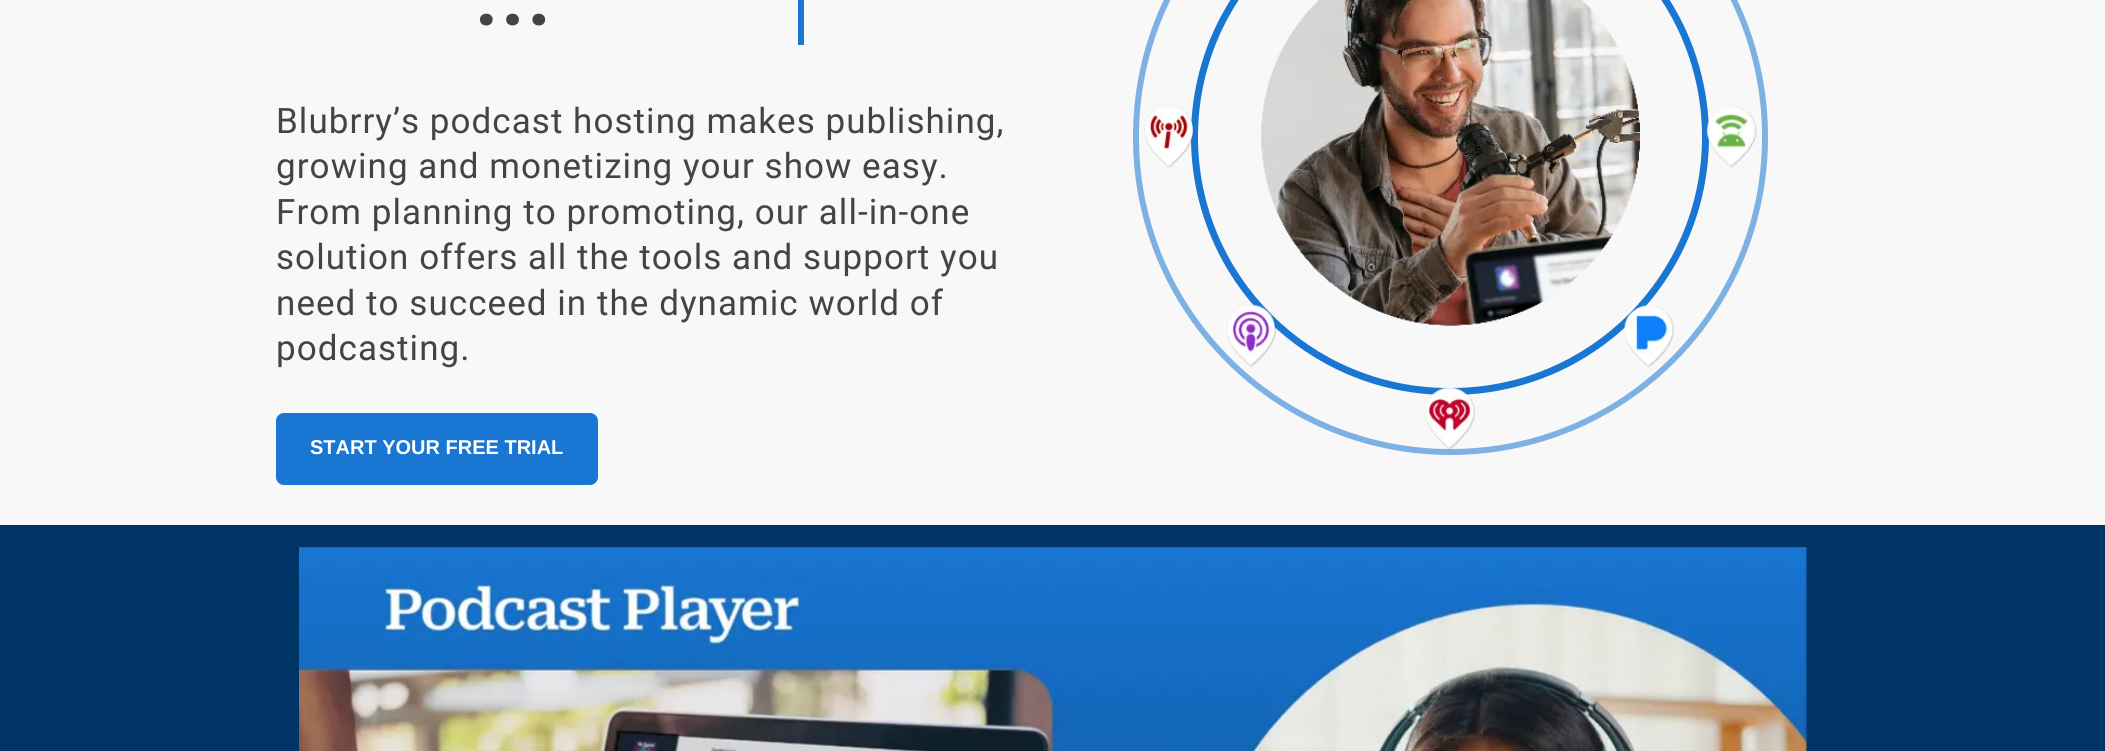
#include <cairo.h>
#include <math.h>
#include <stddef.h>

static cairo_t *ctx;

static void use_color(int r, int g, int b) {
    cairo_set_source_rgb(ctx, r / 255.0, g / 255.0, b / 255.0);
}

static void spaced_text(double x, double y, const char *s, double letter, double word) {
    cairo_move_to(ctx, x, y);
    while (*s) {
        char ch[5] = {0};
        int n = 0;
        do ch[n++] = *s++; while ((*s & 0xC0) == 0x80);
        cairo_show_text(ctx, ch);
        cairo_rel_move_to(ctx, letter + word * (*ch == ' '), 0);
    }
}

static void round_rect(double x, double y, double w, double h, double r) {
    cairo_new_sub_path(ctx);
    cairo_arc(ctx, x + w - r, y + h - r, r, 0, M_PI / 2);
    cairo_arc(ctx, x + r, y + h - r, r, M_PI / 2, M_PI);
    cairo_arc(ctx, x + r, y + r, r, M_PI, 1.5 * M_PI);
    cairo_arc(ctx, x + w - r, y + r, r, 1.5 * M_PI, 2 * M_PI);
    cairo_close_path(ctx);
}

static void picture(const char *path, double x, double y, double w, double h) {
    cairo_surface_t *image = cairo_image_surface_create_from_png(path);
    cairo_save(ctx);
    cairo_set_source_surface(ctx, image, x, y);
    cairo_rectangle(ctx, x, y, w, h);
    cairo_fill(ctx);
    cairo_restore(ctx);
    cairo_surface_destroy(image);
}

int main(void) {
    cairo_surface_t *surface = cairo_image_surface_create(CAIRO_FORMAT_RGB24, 2105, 751);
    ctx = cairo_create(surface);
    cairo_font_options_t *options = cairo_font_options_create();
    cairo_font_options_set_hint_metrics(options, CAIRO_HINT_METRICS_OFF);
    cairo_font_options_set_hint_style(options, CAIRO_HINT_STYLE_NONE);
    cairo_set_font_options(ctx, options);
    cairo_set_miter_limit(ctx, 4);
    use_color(248, 248, 248);
    cairo_paint(ctx);
    cairo_select_font_face(ctx, "Roboto", CAIRO_FONT_SLANT_NORMAL, CAIRO_FONT_WEIGHT_BOLD);
    cairo_set_font_size(ctx, 80);
    use_color(68, 68, 68);
    spaced_text(475, 25, "...", 3, 0);
    use_color(25, 118, 210);
    cairo_rectangle(ctx, 798, 0, 6, 45);
    cairo_fill(ctx);
    cairo_select_font_face(ctx, "Roboto", CAIRO_FONT_SLANT_NORMAL, CAIRO_FONT_WEIGHT_NORMAL);
    cairo_set_font_size(ctx, 35);
    use_color(68, 68, 68);
    spaced_text(276, 133, "Blubrry’s podcast hosting makes publishing,", 1.05, 0);
    spaced_text(276, 178, "growing and monetizing your show easy.", 1.05, 0);
    spaced_text(276, 224, "From planning to promoting, our all-in-one", 1.05, 0);
    spaced_text(276, 269, "solution offers all the tools and support you", 1.05, 0);
    spaced_text(276, 315, "need to succeed in the dynamic world of", 1.05, 0);
    spaced_text(276, 360, "podcasting.", 1.05, 0);
    use_color(25, 118, 210);
    round_rect(277.5, 414.5, 319, 69, 6.5);
    cairo_fill_preserve(ctx);
    cairo_set_line_width(ctx, 3);
    cairo_stroke(ctx);
    cairo_select_font_face(ctx, "Liberation Sans", CAIRO_FONT_SLANT_NORMAL, CAIRO_FONT_WEIGHT_BOLD);
    cairo_set_font_size(ctx, 20);
    use_color(255, 255, 255);
    cairo_move_to(ctx, 310, 454);
    cairo_show_text(ctx, "START YOUR FREE TRIAL");
    round_rect(1194.5, -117.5, 511, 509, 254.5);
    use_color(25, 118, 210);
    cairo_set_line_width(ctx, 7);
    cairo_stroke(ctx);
    round_rect(1136, -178, 629, 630, 314.5);
    use_color(125, 177, 227);
    cairo_set_line_width(ctx, 6);
    cairo_stroke(ctx);
    picture("img4.png", 1226, 304, 51, 63);
    picture("img5.png", 1623, 305, 51, 63);
    picture("img1.png", 1261, 0, 379, 326);
    picture("img2.png", 1144, 105, 50, 63);
    picture("img3.png", 1706, 106, 51, 62);
    picture("img6.png", 1424, 387, 51, 63);
    use_color(0, 51, 102);
    cairo_rectangle(ctx, 0, 525, 2105, 226);
    cairo_fill(ctx);
    picture("img7.png", 299, 547, 1508, 204);
    cairo_surface_write_to_png(surface, "result.png");
    cairo_font_options_destroy(options);
    cairo_destroy(ctx);
    cairo_surface_destroy(surface);
    return 0;
}
